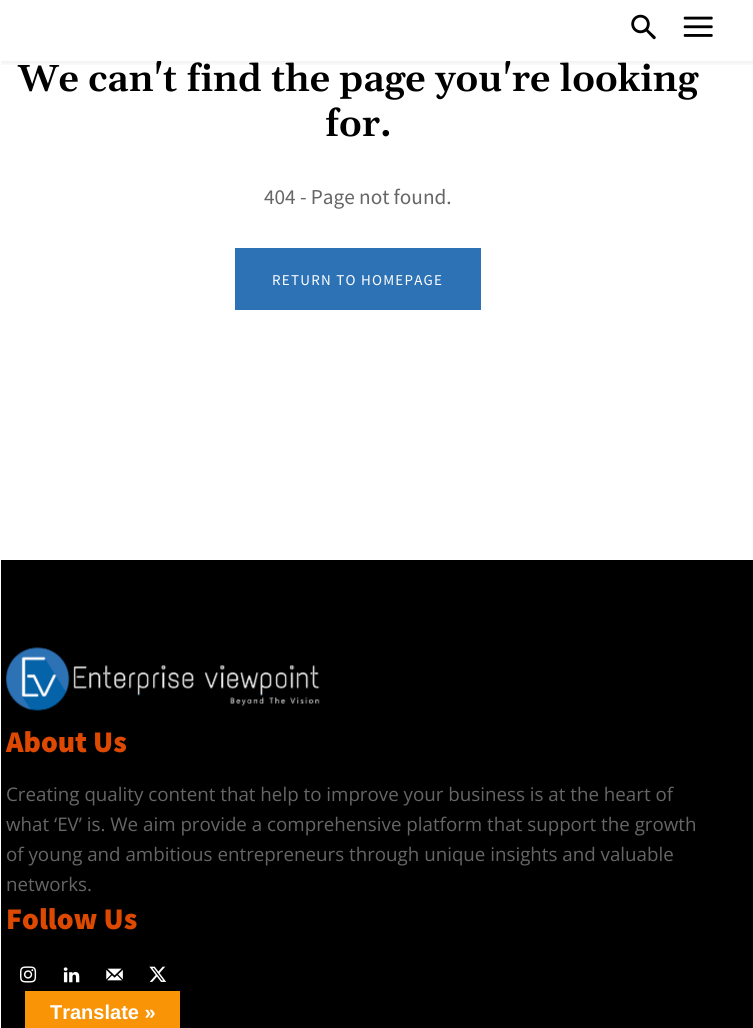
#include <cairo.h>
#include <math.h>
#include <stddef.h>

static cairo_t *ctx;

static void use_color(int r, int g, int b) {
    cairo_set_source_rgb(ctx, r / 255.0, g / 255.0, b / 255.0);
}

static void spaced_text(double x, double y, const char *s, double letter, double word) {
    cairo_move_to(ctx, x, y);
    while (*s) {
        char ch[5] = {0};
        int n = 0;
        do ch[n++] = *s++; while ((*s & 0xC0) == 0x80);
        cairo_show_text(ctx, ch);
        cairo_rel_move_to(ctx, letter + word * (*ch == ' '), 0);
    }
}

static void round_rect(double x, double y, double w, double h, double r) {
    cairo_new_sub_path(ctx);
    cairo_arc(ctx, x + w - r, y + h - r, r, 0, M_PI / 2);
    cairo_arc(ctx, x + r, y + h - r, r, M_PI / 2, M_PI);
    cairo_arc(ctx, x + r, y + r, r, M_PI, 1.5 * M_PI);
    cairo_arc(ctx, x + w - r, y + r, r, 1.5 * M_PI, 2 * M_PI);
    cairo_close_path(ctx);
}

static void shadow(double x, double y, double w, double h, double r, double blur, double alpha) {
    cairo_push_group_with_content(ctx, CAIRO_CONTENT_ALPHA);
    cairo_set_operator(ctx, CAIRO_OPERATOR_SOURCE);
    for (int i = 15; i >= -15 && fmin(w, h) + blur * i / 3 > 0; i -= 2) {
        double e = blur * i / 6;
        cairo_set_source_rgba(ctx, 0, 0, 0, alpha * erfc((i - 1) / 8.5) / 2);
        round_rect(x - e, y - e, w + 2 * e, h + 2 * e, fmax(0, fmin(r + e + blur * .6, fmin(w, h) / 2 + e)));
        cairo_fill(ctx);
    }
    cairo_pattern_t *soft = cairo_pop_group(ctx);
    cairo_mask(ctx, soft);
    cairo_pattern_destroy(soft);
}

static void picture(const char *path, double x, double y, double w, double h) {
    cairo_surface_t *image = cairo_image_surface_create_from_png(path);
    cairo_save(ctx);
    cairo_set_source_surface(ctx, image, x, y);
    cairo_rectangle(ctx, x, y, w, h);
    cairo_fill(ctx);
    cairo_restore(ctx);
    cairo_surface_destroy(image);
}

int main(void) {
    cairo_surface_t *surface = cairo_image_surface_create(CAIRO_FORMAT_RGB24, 753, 1028);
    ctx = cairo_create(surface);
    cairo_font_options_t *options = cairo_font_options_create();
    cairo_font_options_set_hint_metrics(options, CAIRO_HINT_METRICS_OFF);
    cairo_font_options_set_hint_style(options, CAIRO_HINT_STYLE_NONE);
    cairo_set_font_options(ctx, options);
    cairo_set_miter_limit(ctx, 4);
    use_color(255, 255, 255);
    cairo_paint(ctx);
    picture("img1.png", 631, 14, 25, 26);
    picture("img2.png", 683, 16, 30, 21);
    cairo_select_font_face(ctx, "Gelasio SemiBold", CAIRO_FONT_SLANT_NORMAL, CAIRO_FONT_WEIGHT_NORMAL);
    cairo_set_font_size(ctx, 37.5);
    use_color(0, 0, 0);
    cairo_move_to(ctx, 18, 91);
    cairo_show_text(ctx, "We can't find the page you're looking");
    use_color(255, 255, 255);
    cairo_rectangle(ctx, 157, 60, 353, 1);
    cairo_fill(ctx);
    cairo_save(ctx);
    cairo_rectangle(ctx, 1, 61, 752, 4);
    cairo_clip(ctx);
    use_color(0, 0, 0);
    shadow(1, 3, 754, 61, 0, 2.5, 0.06);
    cairo_restore(ctx);
    use_color(0, 0, 0);
    cairo_move_to(ctx, 325, 136);
    cairo_show_text(ctx, "for.");
    cairo_select_font_face(ctx, "Source Sans Pro", CAIRO_FONT_SLANT_NORMAL, CAIRO_FONT_WEIGHT_NORMAL);
    cairo_set_font_size(ctx, 21.25);
    use_color(102, 102, 102);
    cairo_move_to(ctx, 264, 204);
    cairo_show_text(ctx, "404 - Page not found.");
    use_color(44, 114, 181);
    cairo_rectangle(ctx, 235, 248, 246, 62);
    cairo_fill(ctx);
    cairo_set_font_size(ctx, 15);
    use_color(255, 255, 255);
    spaced_text(272, 285, "RETURN TO HOMEPAGE", 1.25, 0);
    use_color(0, 0, 0);
    cairo_rectangle(ctx, 1, 560, 752, 468);
    cairo_fill(ctx);
    picture("img3.png", 6, 647, 314, 64);
    cairo_select_font_face(ctx, "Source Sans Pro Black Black", CAIRO_FONT_SLANT_NORMAL, CAIRO_FONT_WEIGHT_NORMAL);
    cairo_set_font_size(ctx, 30);
    use_color(221, 73, 0);
    cairo_move_to(ctx, 6, 752);
    cairo_show_text(ctx, "About Us");
    cairo_select_font_face(ctx, "Open Sans", CAIRO_FONT_SLANT_NORMAL, CAIRO_FONT_WEIGHT_NORMAL);
    cairo_set_font_size(ctx, 18.75);
    use_color(102, 102, 102);
    cairo_move_to(ctx, 6, 801);
    cairo_show_text(ctx, "Creating quality content that help to improve your business is at the heart of");
    cairo_move_to(ctx, 6, 831);
    cairo_show_text(ctx, "what ‘EV’ is. We aim provide a comprehensive platform that support the growth");
    cairo_move_to(ctx, 6, 861);
    cairo_show_text(ctx, "of young and ambitious entrepreneurs through unique insights and valuable");
    cairo_move_to(ctx, 6, 891);
    cairo_show_text(ctx, "networks.");
    cairo_select_font_face(ctx, "Source Sans Pro Black Black", CAIRO_FONT_SLANT_NORMAL, CAIRO_FONT_WEIGHT_NORMAL);
    cairo_set_font_size(ctx, 30);
    use_color(221, 73, 0);
    cairo_move_to(ctx, 6, 929);
    cairo_show_text(ctx, "Follow Us");
    picture("img4.png", 20, 966, 17, 17);
    picture("img5.png", 63, 967, 17, 16);
    picture("img6.png", 106, 968, 17, 13);
    picture("img7.png", 149, 966, 18, 16);
    use_color(248, 148, 6);
    cairo_rectangle(ctx, 25, 991, 155, 37);
    cairo_fill(ctx);
    cairo_select_font_face(ctx, "Liberation Sans", CAIRO_FONT_SLANT_NORMAL, CAIRO_FONT_WEIGHT_BOLD);
    cairo_set_font_size(ctx, 20);
    use_color(255, 255, 255);
    cairo_move_to(ctx, 50, 1019);
    cairo_show_text(ctx, "Translate »");
    cairo_surface_write_to_png(surface, "result.png");
    cairo_font_options_destroy(options);
    cairo_destroy(ctx);
    cairo_surface_destroy(surface);
    return 0;
}
